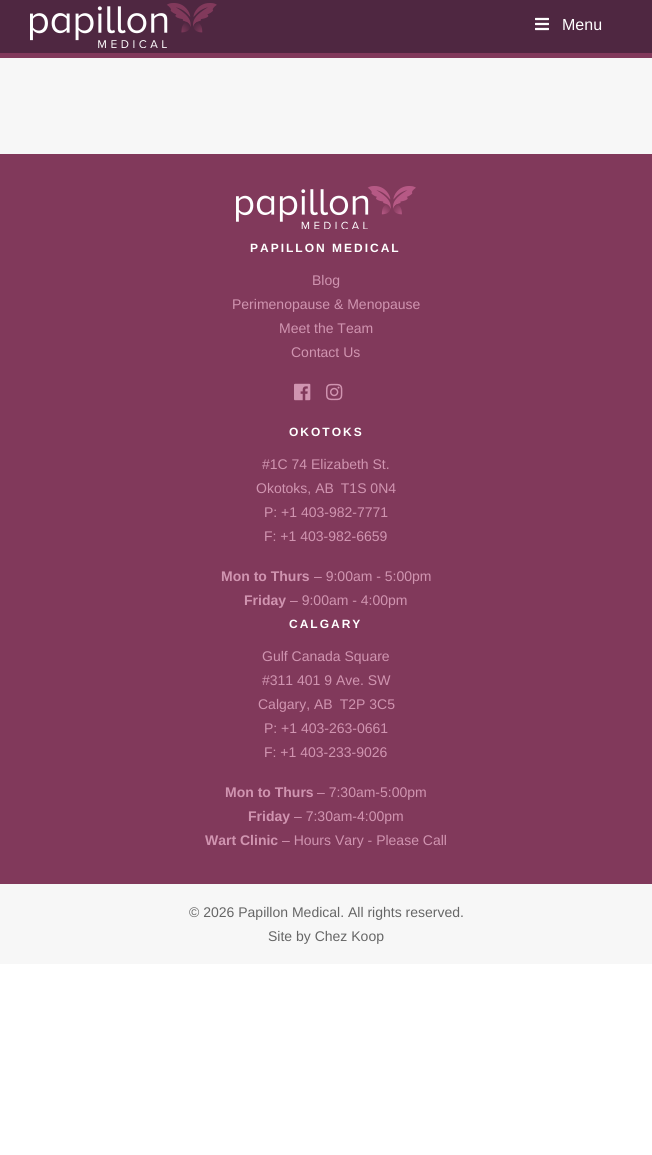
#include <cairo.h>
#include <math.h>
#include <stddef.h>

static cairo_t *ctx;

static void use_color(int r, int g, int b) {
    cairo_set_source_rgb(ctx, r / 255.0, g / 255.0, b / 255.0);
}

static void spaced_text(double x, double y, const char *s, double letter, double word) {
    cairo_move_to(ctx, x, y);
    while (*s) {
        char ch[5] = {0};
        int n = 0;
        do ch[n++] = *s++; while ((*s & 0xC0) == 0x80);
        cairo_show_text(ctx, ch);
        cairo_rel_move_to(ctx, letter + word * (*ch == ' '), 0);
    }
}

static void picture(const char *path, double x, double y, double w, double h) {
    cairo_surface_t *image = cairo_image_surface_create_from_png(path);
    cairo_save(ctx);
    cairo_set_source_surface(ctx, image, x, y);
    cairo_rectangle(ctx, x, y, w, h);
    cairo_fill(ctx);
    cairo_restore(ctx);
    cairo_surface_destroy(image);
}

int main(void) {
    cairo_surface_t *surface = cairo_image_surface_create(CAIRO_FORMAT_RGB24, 652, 1155);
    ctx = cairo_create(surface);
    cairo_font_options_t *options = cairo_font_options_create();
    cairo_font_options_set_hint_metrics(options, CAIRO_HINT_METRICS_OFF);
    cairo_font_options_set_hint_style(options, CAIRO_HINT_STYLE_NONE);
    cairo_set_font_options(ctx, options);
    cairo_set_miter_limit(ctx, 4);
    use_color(255, 255, 255);
    cairo_paint(ctx);
    use_color(79, 39, 65);
    cairo_rectangle(ctx, 0, 0, 652, 53);
    cairo_fill(ctx);
    use_color(129, 57, 91);
    cairo_rectangle(ctx, 0, 53, 652, 5);
    cairo_fill(ctx);
    picture("img1.png", 30, 3, 187, 45);
    picture("img2.png", 535, 17, 14, 14);
    cairo_select_font_face(ctx, "Liberation Sans", CAIRO_FONT_SLANT_NORMAL, CAIRO_FONT_WEIGHT_NORMAL);
    cairo_set_font_size(ctx, 16);
    use_color(255, 255, 255);
    cairo_move_to(ctx, 562, 30);
    cairo_show_text(ctx, "Menu");
    use_color(247, 247, 247);
    cairo_rectangle(ctx, 0, 58, 652, 96);
    cairo_fill(ctx);
    use_color(129, 57, 91);
    cairo_rectangle(ctx, 0, 154, 652, 730);
    cairo_fill(ctx);
    picture("img3.png", 236, 186, 180, 43);
    cairo_select_font_face(ctx, "Liberation Sans", CAIRO_FONT_SLANT_NORMAL, CAIRO_FONT_WEIGHT_BOLD);
    cairo_set_font_size(ctx, 12);
    use_color(255, 255, 255);
    spaced_text(250, 252, "PAPILLON MEDICAL", 2, 0);
    cairo_select_font_face(ctx, "Liberation Sans", CAIRO_FONT_SLANT_NORMAL, CAIRO_FONT_WEIGHT_NORMAL);
    cairo_set_font_size(ctx, 14);
    use_color(208, 148, 176);
    cairo_move_to(ctx, 312, 285);
    cairo_show_text(ctx, "Blog");
    cairo_move_to(ctx, 232, 309);
    cairo_show_text(ctx, "Perimenopause & Menopause");
    cairo_move_to(ctx, 279, 333);
    cairo_show_text(ctx, "Meet the Team");
    cairo_move_to(ctx, 291, 357);
    cairo_show_text(ctx, "Contact Us");
    picture("img4.png", 294, 383, 17, 18);
    picture("img5.png", 326, 383, 17, 18);
    cairo_select_font_face(ctx, "Liberation Sans", CAIRO_FONT_SLANT_NORMAL, CAIRO_FONT_WEIGHT_BOLD);
    cairo_set_font_size(ctx, 12);
    use_color(255, 255, 255);
    spaced_text(289, 436, "OKOTOKS", 2, 0);
    cairo_select_font_face(ctx, "Liberation Sans", CAIRO_FONT_SLANT_NORMAL, CAIRO_FONT_WEIGHT_NORMAL);
    cairo_set_font_size(ctx, 14);
    use_color(208, 148, 176);
    cairo_move_to(ctx, 262, 469);
    cairo_show_text(ctx, "#1C 74 Elizabeth St.");
    cairo_move_to(ctx, 256, 493);
    cairo_show_text(ctx, "Okotoks, AB T1S 0N4");
    cairo_move_to(ctx, 264, 517);
    cairo_show_text(ctx, "P: +1 403-982-7771");
    cairo_move_to(ctx, 264, 541);
    cairo_show_text(ctx, "F: +1 403-982-6659");
    cairo_select_font_face(ctx, "Liberation Sans", CAIRO_FONT_SLANT_NORMAL, CAIRO_FONT_WEIGHT_BOLD);
    cairo_move_to(ctx, 221, 581);
    cairo_show_text(ctx, "Mon to Thurs");
    cairo_select_font_face(ctx, "Liberation Sans", CAIRO_FONT_SLANT_NORMAL, CAIRO_FONT_WEIGHT_NORMAL);
    cairo_move_to(ctx, 314, 581);
    cairo_show_text(ctx, "– 9:00am - 5:00pm");
    cairo_select_font_face(ctx, "Liberation Sans", CAIRO_FONT_SLANT_NORMAL, CAIRO_FONT_WEIGHT_BOLD);
    cairo_move_to(ctx, 244, 605);
    cairo_show_text(ctx, "Friday");
    cairo_select_font_face(ctx, "Liberation Sans", CAIRO_FONT_SLANT_NORMAL, CAIRO_FONT_WEIGHT_NORMAL);
    cairo_move_to(ctx, 290, 605);
    cairo_show_text(ctx, "– 9:00am - 4:00pm");
    cairo_select_font_face(ctx, "Liberation Sans", CAIRO_FONT_SLANT_NORMAL, CAIRO_FONT_WEIGHT_BOLD);
    cairo_set_font_size(ctx, 12);
    use_color(255, 255, 255);
    spaced_text(289, 628, "CALGARY", 2, 0);
    cairo_select_font_face(ctx, "Liberation Sans", CAIRO_FONT_SLANT_NORMAL, CAIRO_FONT_WEIGHT_NORMAL);
    cairo_set_font_size(ctx, 14);
    use_color(208, 148, 176);
    cairo_move_to(ctx, 262, 661);
    cairo_show_text(ctx, "Gulf Canada Square");
    cairo_move_to(ctx, 262, 685);
    cairo_show_text(ctx, "#311 401 9 Ave. SW");
    cairo_move_to(ctx, 258, 709);
    cairo_show_text(ctx, "Calgary, AB T2P 3C5");
    cairo_move_to(ctx, 264, 733);
    cairo_show_text(ctx, "P: +1 403-263-0661");
    cairo_move_to(ctx, 264, 757);
    cairo_show_text(ctx, "F: +1 403-233-9026");
    cairo_select_font_face(ctx, "Liberation Sans", CAIRO_FONT_SLANT_NORMAL, CAIRO_FONT_WEIGHT_BOLD);
    cairo_move_to(ctx, 225, 797);
    cairo_show_text(ctx, "Mon to Thurs");
    cairo_select_font_face(ctx, "Liberation Sans", CAIRO_FONT_SLANT_NORMAL, CAIRO_FONT_WEIGHT_NORMAL);
    cairo_move_to(ctx, 317, 797);
    cairo_show_text(ctx, "– 7:30am-5:00pm");
    cairo_select_font_face(ctx, "Liberation Sans", CAIRO_FONT_SLANT_NORMAL, CAIRO_FONT_WEIGHT_BOLD);
    cairo_move_to(ctx, 248, 821);
    cairo_show_text(ctx, "Friday");
    cairo_select_font_face(ctx, "Liberation Sans", CAIRO_FONT_SLANT_NORMAL, CAIRO_FONT_WEIGHT_NORMAL);
    cairo_move_to(ctx, 294, 821);
    cairo_show_text(ctx, "– 7:30am-4:00pm");
    cairo_select_font_face(ctx, "Liberation Sans", CAIRO_FONT_SLANT_NORMAL, CAIRO_FONT_WEIGHT_BOLD);
    cairo_move_to(ctx, 205, 845);
    cairo_show_text(ctx, "Wart Clinic");
    cairo_select_font_face(ctx, "Liberation Sans", CAIRO_FONT_SLANT_NORMAL, CAIRO_FONT_WEIGHT_NORMAL);
    cairo_move_to(ctx, 282, 845);
    cairo_show_text(ctx, "– Hours Vary - Please Call");
    use_color(247, 247, 247);
    cairo_rectangle(ctx, 0, 884, 652, 80);
    cairo_fill(ctx);
    use_color(102, 102, 102);
    cairo_move_to(ctx, 189, 917);
    cairo_show_text(ctx, "© 2026 Papillon Medical. All rights reserved.");
    cairo_move_to(ctx, 268, 941);
    cairo_show_text(ctx, "Site by Chez Koop");
    cairo_surface_write_to_png(surface, "result.png");
    cairo_font_options_destroy(options);
    cairo_destroy(ctx);
    cairo_surface_destroy(surface);
    return 0;
}
